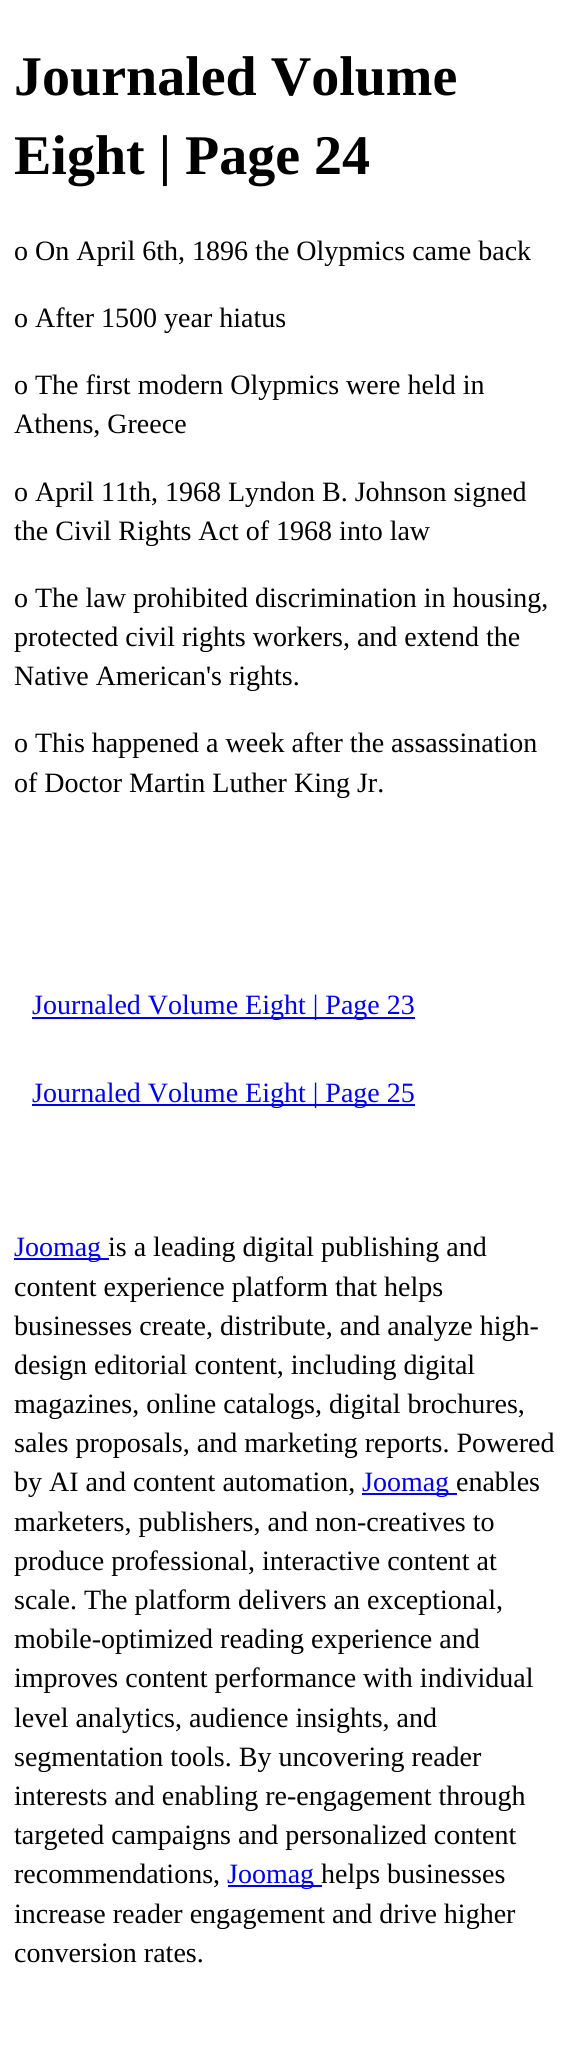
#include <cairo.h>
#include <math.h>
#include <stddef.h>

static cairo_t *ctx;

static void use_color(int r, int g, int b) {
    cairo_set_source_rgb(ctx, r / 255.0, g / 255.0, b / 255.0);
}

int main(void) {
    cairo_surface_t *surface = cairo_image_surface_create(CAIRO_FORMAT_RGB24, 570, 2058);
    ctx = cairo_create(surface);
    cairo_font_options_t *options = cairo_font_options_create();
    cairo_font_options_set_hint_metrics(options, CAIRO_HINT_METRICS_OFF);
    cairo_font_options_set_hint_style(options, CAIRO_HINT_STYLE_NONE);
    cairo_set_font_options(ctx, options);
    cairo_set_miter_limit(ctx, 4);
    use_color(255, 255, 255);
    cairo_paint(ctx);
    cairo_select_font_face(ctx, "Liberation Serif", CAIRO_FONT_SLANT_NORMAL, CAIRO_FONT_WEIGHT_BOLD);
    cairo_set_font_size(ctx, 56);
    use_color(0, 0, 0);
    cairo_move_to(ctx, 14, 95);
    cairo_show_text(ctx, "Journaled Volume");
    cairo_move_to(ctx, 14, 174);
    cairo_show_text(ctx, "Eight | Page 24");
    cairo_select_font_face(ctx, "Liberation Serif", CAIRO_FONT_SLANT_NORMAL, CAIRO_FONT_WEIGHT_NORMAL);
    cairo_set_font_size(ctx, 28);
    cairo_move_to(ctx, 14, 260);
    cairo_show_text(ctx, "o On April 6th, 1896 the Olypmics came back");
    cairo_move_to(ctx, 14, 327);
    cairo_show_text(ctx, "o After 1500 year hiatus");
    cairo_move_to(ctx, 14, 394);
    cairo_show_text(ctx, "o The first modern Olypmics were held in");
    cairo_move_to(ctx, 14, 433);
    cairo_show_text(ctx, "Athens, Greece");
    cairo_move_to(ctx, 14, 501);
    cairo_show_text(ctx, "o April 11th, 1968 Lyndon B. Johnson signed");
    cairo_move_to(ctx, 14, 540);
    cairo_show_text(ctx, "the Civil Rights Act of 1968 into law");
    cairo_move_to(ctx, 14, 607);
    cairo_show_text(ctx, "o The law prohibited discrimination in housing,");
    cairo_move_to(ctx, 14, 646);
    cairo_show_text(ctx, "protected civil rights workers, and extend the");
    cairo_move_to(ctx, 14, 685);
    cairo_show_text(ctx, "Native American's rights.");
    cairo_move_to(ctx, 14, 752);
    cairo_show_text(ctx, "o This happened a week after the assassination");
    cairo_move_to(ctx, 14, 792);
    cairo_show_text(ctx, "of Doctor Martin Luther King Jr.");
    use_color(0, 0, 238);
    cairo_rectangle(ctx, 32, 1017, 383, 2);
    cairo_fill(ctx);
    cairo_move_to(ctx, 32, 1014);
    cairo_show_text(ctx, "Journaled Volume Eight | Page 23");
    cairo_rectangle(ctx, 32, 1104, 383, 2);
    cairo_fill(ctx);
    cairo_move_to(ctx, 32, 1102);
    cairo_show_text(ctx, "Journaled Volume Eight | Page 25");
    cairo_rectangle(ctx, 14, 1258, 95, 2);
    cairo_fill(ctx);
    cairo_move_to(ctx, 14, 1256);
    cairo_show_text(ctx, "Joomag");
    use_color(0, 0, 0);
    cairo_move_to(ctx, 108, 1256);
    cairo_show_text(ctx, "is a leading digital publishing and");
    cairo_move_to(ctx, 14, 1296);
    cairo_show_text(ctx, "content experience platform that helps");
    cairo_move_to(ctx, 14, 1335);
    cairo_show_text(ctx, "businesses create, distribute, and analyze high-");
    cairo_move_to(ctx, 14, 1374);
    cairo_show_text(ctx, "design editorial content, including digital");
    cairo_move_to(ctx, 14, 1413);
    cairo_show_text(ctx, "magazines, online catalogs, digital brochures,");
    cairo_move_to(ctx, 14, 1452);
    cairo_show_text(ctx, "sales proposals, and marketing reports. Powered");
    cairo_move_to(ctx, 14, 1491);
    cairo_show_text(ctx, "by AI and content automation,");
    use_color(0, 0, 238);
    cairo_rectangle(ctx, 362, 1493, 95, 2);
    cairo_fill(ctx);
    cairo_move_to(ctx, 362, 1491);
    cairo_show_text(ctx, "Joomag");
    use_color(0, 0, 0);
    cairo_move_to(ctx, 456, 1491);
    cairo_show_text(ctx, "enables");
    cairo_move_to(ctx, 14, 1531);
    cairo_show_text(ctx, "marketers, publishers, and non-creatives to");
    cairo_move_to(ctx, 14, 1570);
    cairo_show_text(ctx, "produce professional, interactive content at");
    cairo_move_to(ctx, 14, 1609);
    cairo_show_text(ctx, "scale. The platform delivers an exceptional,");
    cairo_move_to(ctx, 14, 1648);
    cairo_show_text(ctx, "mobile-optimized reading experience and");
    cairo_move_to(ctx, 14, 1687);
    cairo_show_text(ctx, "improves content performance with individual");
    cairo_move_to(ctx, 14, 1727);
    cairo_show_text(ctx, "level analytics, audience insights, and");
    cairo_move_to(ctx, 14, 1766);
    cairo_show_text(ctx, "segmentation tools. By uncovering reader");
    cairo_move_to(ctx, 14, 1805);
    cairo_show_text(ctx, "interests and enabling re-engagement through");
    cairo_move_to(ctx, 14, 1844);
    cairo_show_text(ctx, "targeted campaigns and personalized content");
    cairo_move_to(ctx, 14, 1883);
    cairo_show_text(ctx, "recommendations,");
    use_color(0, 0, 238);
    cairo_rectangle(ctx, 228, 1885, 94, 2);
    cairo_fill(ctx);
    cairo_move_to(ctx, 227, 1883);
    cairo_show_text(ctx, "Joomag");
    use_color(0, 0, 0);
    cairo_move_to(ctx, 321, 1883);
    cairo_show_text(ctx, "helps businesses");
    cairo_move_to(ctx, 14, 1923);
    cairo_show_text(ctx, "increase reader engagement and drive higher");
    cairo_move_to(ctx, 14, 1962);
    cairo_show_text(ctx, "conversion rates.");
    cairo_surface_write_to_png(surface, "result.png");
    cairo_font_options_destroy(options);
    cairo_destroy(ctx);
    cairo_surface_destroy(surface);
    return 0;
}
